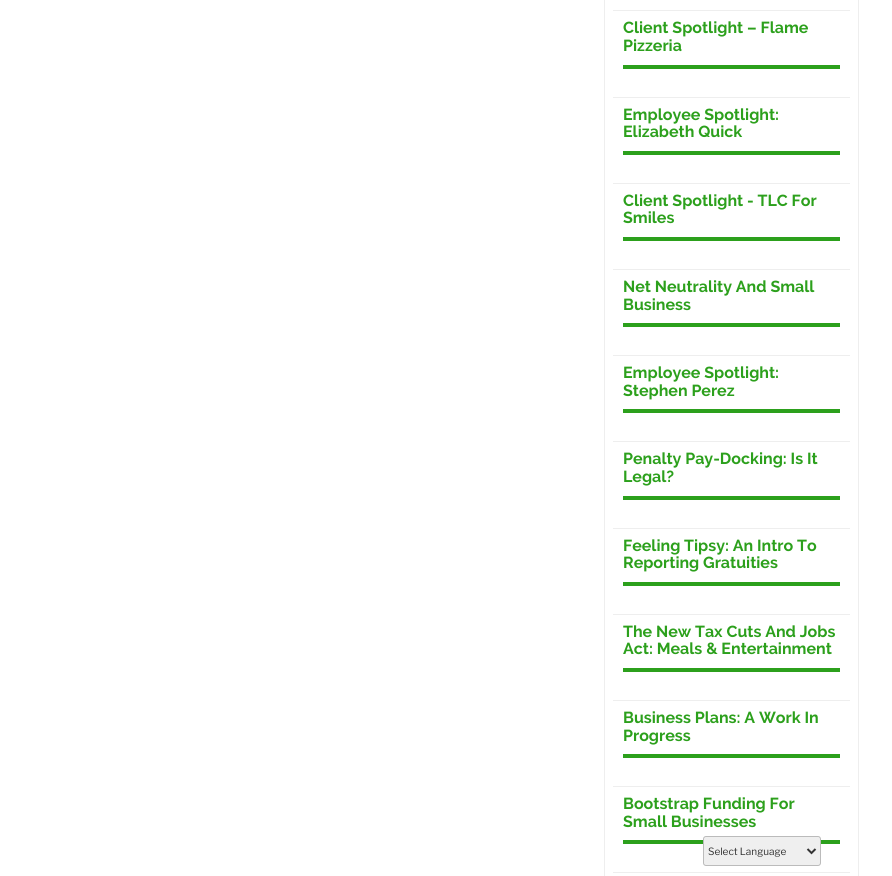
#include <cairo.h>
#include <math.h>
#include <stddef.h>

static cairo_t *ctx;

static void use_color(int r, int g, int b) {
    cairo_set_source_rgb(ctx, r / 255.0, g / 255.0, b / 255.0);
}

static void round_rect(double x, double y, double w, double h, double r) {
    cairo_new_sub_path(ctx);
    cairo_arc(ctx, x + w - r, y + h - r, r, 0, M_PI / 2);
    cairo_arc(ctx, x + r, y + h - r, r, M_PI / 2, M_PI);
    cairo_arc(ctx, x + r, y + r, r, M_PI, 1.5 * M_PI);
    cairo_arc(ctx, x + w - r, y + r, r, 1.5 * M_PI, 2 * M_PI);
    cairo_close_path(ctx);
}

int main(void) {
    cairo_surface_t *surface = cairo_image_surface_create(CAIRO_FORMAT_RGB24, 892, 876);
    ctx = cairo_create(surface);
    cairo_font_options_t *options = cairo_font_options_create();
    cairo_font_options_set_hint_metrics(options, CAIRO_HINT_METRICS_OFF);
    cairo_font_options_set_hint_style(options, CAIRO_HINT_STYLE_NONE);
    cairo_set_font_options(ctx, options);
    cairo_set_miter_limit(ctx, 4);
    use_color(255, 255, 255);
    cairo_paint(ctx);
    cairo_rectangle(ctx, 604.5, -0.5, 254, 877);
    use_color(238, 238, 238);
    cairo_set_line_width(ctx, 1);
    cairo_stroke(ctx);
    cairo_rectangle(ctx, 613, 10, 237, 1);
    cairo_fill(ctx);
    cairo_rectangle(ctx, 613, 97, 237, 1);
    cairo_fill(ctx);
    use_color(44, 160, 28);
    cairo_rectangle(ctx, 623, 65, 217, 4);
    cairo_fill(ctx);
    cairo_select_font_face(ctx, "Raleway", CAIRO_FONT_SLANT_NORMAL, CAIRO_FONT_WEIGHT_BOLD);
    cairo_set_font_size(ctx, 16);
    cairo_move_to(ctx, 623, 33);
    cairo_show_text(ctx, "Client Spotlight – Flame");
    cairo_move_to(ctx, 623, 51);
    cairo_show_text(ctx, "Pizzeria");
    use_color(238, 238, 238);
    cairo_rectangle(ctx, 613, 183, 237, 1);
    cairo_fill(ctx);
    use_color(44, 160, 28);
    cairo_rectangle(ctx, 623, 151, 217, 4);
    cairo_fill(ctx);
    cairo_move_to(ctx, 623, 120);
    cairo_show_text(ctx, "Employee Spotlight:");
    cairo_move_to(ctx, 623, 137);
    cairo_show_text(ctx, "Elizabeth Quick");
    use_color(238, 238, 238);
    cairo_rectangle(ctx, 613, 269, 237, 1);
    cairo_fill(ctx);
    use_color(44, 160, 28);
    cairo_rectangle(ctx, 623, 237, 217, 4);
    cairo_fill(ctx);
    cairo_move_to(ctx, 623, 206);
    cairo_show_text(ctx, "Client Spotlight - TLC For");
    cairo_move_to(ctx, 623, 223);
    cairo_show_text(ctx, "Smiles");
    use_color(238, 238, 238);
    cairo_rectangle(ctx, 613, 355, 237, 1);
    cairo_fill(ctx);
    use_color(44, 160, 28);
    cairo_rectangle(ctx, 623, 323, 217, 4);
    cairo_fill(ctx);
    cairo_move_to(ctx, 623, 292);
    cairo_show_text(ctx, "Net Neutrality And Small");
    cairo_move_to(ctx, 623, 310);
    cairo_show_text(ctx, "Business");
    use_color(238, 238, 238);
    cairo_rectangle(ctx, 613, 441, 237, 1);
    cairo_fill(ctx);
    use_color(44, 160, 28);
    cairo_rectangle(ctx, 623, 409, 217, 4);
    cairo_fill(ctx);
    cairo_move_to(ctx, 623, 378);
    cairo_show_text(ctx, "Employee Spotlight:");
    cairo_move_to(ctx, 623, 396);
    cairo_show_text(ctx, "Stephen Perez");
    use_color(238, 238, 238);
    cairo_rectangle(ctx, 613, 528, 237, 1);
    cairo_fill(ctx);
    use_color(44, 160, 28);
    cairo_rectangle(ctx, 623, 496, 217, 4);
    cairo_fill(ctx);
    cairo_move_to(ctx, 623, 464);
    cairo_show_text(ctx, "Penalty Pay-Docking: Is It");
    cairo_move_to(ctx, 623, 482);
    cairo_show_text(ctx, "Legal?");
    use_color(238, 238, 238);
    cairo_rectangle(ctx, 613, 614, 237, 1);
    cairo_fill(ctx);
    use_color(44, 160, 28);
    cairo_rectangle(ctx, 623, 582, 217, 4);
    cairo_fill(ctx);
    cairo_move_to(ctx, 623, 551);
    cairo_show_text(ctx, "Feeling Tipsy: An Intro To");
    cairo_move_to(ctx, 623, 568);
    cairo_show_text(ctx, "Reporting Gratuities");
    use_color(238, 238, 238);
    cairo_rectangle(ctx, 613, 700, 237, 1);
    cairo_fill(ctx);
    use_color(44, 160, 28);
    cairo_rectangle(ctx, 623, 668, 217, 4);
    cairo_fill(ctx);
    cairo_move_to(ctx, 623, 637);
    cairo_show_text(ctx, "The New Tax Cuts And Jobs");
    cairo_move_to(ctx, 623, 654);
    cairo_show_text(ctx, "Act: Meals & Entertainment");
    use_color(238, 238, 238);
    cairo_rectangle(ctx, 613, 786, 237, 1);
    cairo_fill(ctx);
    use_color(44, 160, 28);
    cairo_rectangle(ctx, 623, 754, 217, 4);
    cairo_fill(ctx);
    cairo_move_to(ctx, 623, 723);
    cairo_show_text(ctx, "Business Plans: A Work In");
    cairo_move_to(ctx, 623, 741);
    cairo_show_text(ctx, "Progress");
    use_color(238, 238, 238);
    cairo_rectangle(ctx, 613, 872, 237, 1);
    cairo_fill(ctx);
    use_color(44, 160, 28);
    cairo_rectangle(ctx, 623, 840, 217, 4);
    cairo_fill(ctx);
    cairo_move_to(ctx, 623, 809);
    cairo_show_text(ctx, "Bootstrap Funding For");
    cairo_move_to(ctx, 623, 827);
    cairo_show_text(ctx, "Small Businesses");
    use_color(239, 239, 239);
    round_rect(703.5, 836.5, 117, 29, 2.5);
    cairo_fill_preserve(ctx);
    use_color(187, 187, 187);
    cairo_stroke(ctx);
    cairo_new_path(ctx);
    cairo_move_to(ctx, 807.5, 849);
    cairo_line_to(ctx, 811.5, 853);
    cairo_line_to(ctx, 815.5, 849);
    use_color(51, 51, 51);
    cairo_set_line_width(ctx, 2);
    cairo_stroke(ctx);
    cairo_select_font_face(ctx, "Libre Franklin", CAIRO_FONT_SLANT_NORMAL, CAIRO_FONT_WEIGHT_NORMAL);
    cairo_set_font_size(ctx, 10);
    cairo_move_to(ctx, 708, 855);
    cairo_show_text(ctx, "Select Language");
    cairo_surface_write_to_png(surface, "result.png");
    cairo_font_options_destroy(options);
    cairo_destroy(ctx);
    cairo_surface_destroy(surface);
    return 0;
}
